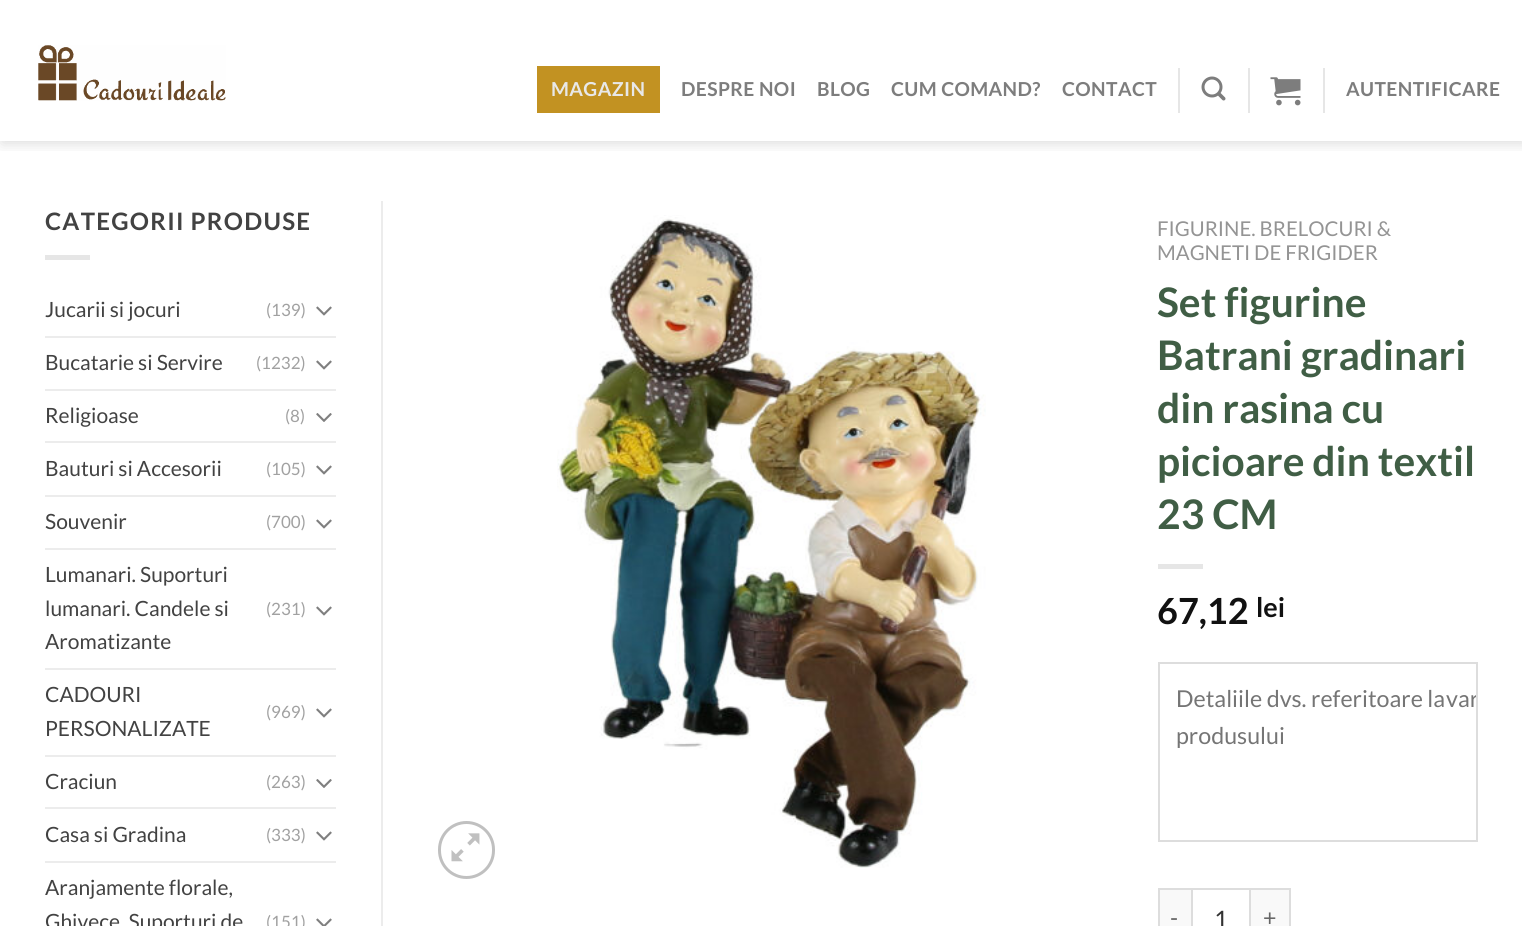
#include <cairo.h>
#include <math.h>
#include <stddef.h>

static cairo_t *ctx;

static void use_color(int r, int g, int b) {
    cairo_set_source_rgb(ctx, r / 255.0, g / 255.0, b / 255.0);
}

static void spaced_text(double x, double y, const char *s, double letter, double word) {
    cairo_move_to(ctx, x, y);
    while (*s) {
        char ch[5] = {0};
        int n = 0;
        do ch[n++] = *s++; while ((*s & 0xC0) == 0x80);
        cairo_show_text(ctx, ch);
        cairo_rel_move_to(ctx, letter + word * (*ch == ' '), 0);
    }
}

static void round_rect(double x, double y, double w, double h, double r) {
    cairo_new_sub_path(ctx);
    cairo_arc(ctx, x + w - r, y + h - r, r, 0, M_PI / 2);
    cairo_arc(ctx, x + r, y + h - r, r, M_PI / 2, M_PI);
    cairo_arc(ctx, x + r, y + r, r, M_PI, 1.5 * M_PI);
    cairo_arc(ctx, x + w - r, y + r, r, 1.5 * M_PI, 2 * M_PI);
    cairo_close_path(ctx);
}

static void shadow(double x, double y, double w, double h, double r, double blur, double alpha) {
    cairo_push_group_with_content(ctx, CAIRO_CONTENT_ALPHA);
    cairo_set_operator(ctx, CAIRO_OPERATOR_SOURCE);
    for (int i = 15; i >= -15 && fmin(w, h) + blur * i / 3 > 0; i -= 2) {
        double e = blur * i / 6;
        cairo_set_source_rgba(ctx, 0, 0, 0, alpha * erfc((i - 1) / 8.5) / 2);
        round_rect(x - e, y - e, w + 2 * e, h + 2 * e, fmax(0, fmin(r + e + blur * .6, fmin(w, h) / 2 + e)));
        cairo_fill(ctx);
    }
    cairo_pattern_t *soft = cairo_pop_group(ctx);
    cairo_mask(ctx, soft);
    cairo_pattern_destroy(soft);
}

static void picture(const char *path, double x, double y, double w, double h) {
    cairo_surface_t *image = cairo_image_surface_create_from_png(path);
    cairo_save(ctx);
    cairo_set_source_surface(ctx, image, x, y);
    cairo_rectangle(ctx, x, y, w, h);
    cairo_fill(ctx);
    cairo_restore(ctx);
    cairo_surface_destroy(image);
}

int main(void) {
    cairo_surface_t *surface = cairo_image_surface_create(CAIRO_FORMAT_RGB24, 1522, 926);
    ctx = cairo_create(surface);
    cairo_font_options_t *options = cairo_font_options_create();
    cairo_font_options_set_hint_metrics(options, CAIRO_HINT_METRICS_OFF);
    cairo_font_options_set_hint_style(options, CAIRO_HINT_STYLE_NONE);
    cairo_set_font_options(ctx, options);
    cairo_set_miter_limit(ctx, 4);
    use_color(255, 255, 255);
    cairo_paint(ctx);
    cairo_save(ctx);
    cairo_rectangle(ctx, 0, 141, 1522, 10);
    cairo_clip(ctx);
    use_color(0, 0, 0);
    shadow(2, 2, 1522, 141, 0, 7.5, 0.15);
    cairo_restore(ctx);
    picture("img1.png", 38, 45, 188, 56);
    use_color(194, 146, 34);
    cairo_rectangle(ctx, 537, 66, 123, 47);
    cairo_fill(ctx);
    cairo_select_font_face(ctx, "Lato", CAIRO_FONT_SLANT_NORMAL, CAIRO_FONT_WEIGHT_BOLD);
    cairo_set_font_size(ctx, 19.25);
    use_color(232, 232, 232);
    spaced_text(551, 96, "MAGAZIN", 0.4, 0);
    use_color(125, 125, 125);
    spaced_text(681, 96, "DESPRE NOI", 0.4, 0);
    spaced_text(817, 96, "BLOG", 0.4, 0);
    spaced_text(891, 96, "CUM COMAND?", 0.4, 0);
    spaced_text(1062, 96, "CONTACT", 0.4, 0);
    use_color(230, 230, 230);
    cairo_rectangle(ctx, 1178, 68, 2, 45);
    cairo_fill(ctx);
    picture("img2.png", 1201, 76, 25, 25);
    cairo_rectangle(ctx, 1248, 68, 2, 45);
    cairo_fill(ctx);
    picture("img3.png", 1270, 77, 31, 29);
    cairo_rectangle(ctx, 1323, 68, 2, 45);
    cairo_fill(ctx);
    use_color(125, 125, 125);
    spaced_text(1346, 96, "AUTENTIFICARE", 0.4, 0);
    cairo_set_font_size(ctx, 24);
    use_color(66, 66, 66);
    spaced_text(45, 230, "CATEGORII PRODUSE", 1.25, 0);
    use_color(230, 230, 230);
    cairo_rectangle(ctx, 45, 255, 45, 5);
    cairo_fill(ctx);
    cairo_select_font_face(ctx, "Lato", CAIRO_FONT_SLANT_NORMAL, CAIRO_FONT_WEIGHT_NORMAL);
    cairo_set_font_size(ctx, 21);
    use_color(66, 66, 66);
    cairo_move_to(ctx, 45, 317);
    cairo_show_text(ctx, "Jucarii si jocuri");
    cairo_set_font_size(ctx, 17);
    use_color(161, 161, 161);
    cairo_move_to(ctx, 266, 316);
    cairo_show_text(ctx, "(139)");
    picture("img4.png", 316, 306, 16, 10);
    use_color(236, 236, 236);
    cairo_rectangle(ctx, 45, 336, 291, 2);
    cairo_fill(ctx);
    cairo_set_font_size(ctx, 21);
    use_color(66, 66, 66);
    cairo_move_to(ctx, 45, 370);
    cairo_show_text(ctx, "Bucatarie si Servire");
    cairo_set_font_size(ctx, 17);
    use_color(161, 161, 161);
    cairo_move_to(ctx, 256, 369);
    cairo_show_text(ctx, "(1232)");
    picture("img4.png", 316, 360, 16, 10);
    use_color(236, 236, 236);
    cairo_rectangle(ctx, 45, 389, 291, 2);
    cairo_fill(ctx);
    cairo_set_font_size(ctx, 21);
    use_color(66, 66, 66);
    cairo_move_to(ctx, 45, 423);
    cairo_show_text(ctx, "Religioase");
    cairo_set_font_size(ctx, 17);
    use_color(161, 161, 161);
    cairo_move_to(ctx, 285, 422);
    cairo_show_text(ctx, "(8)");
    picture("img5.png", 316, 413, 16, 9);
    use_color(236, 236, 236);
    cairo_rectangle(ctx, 45, 441, 291, 2);
    cairo_fill(ctx);
    cairo_set_font_size(ctx, 21);
    use_color(66, 66, 66);
    cairo_move_to(ctx, 45, 476);
    cairo_show_text(ctx, "Bauturi si Accesorii");
    cairo_set_font_size(ctx, 17);
    use_color(161, 161, 161);
    cairo_move_to(ctx, 266, 475);
    cairo_show_text(ctx, "(105)");
    picture("img4.png", 316, 465, 16, 10);
    use_color(236, 236, 236);
    cairo_rectangle(ctx, 45, 495, 291, 2);
    cairo_fill(ctx);
    cairo_set_font_size(ctx, 21);
    use_color(66, 66, 66);
    cairo_move_to(ctx, 45, 529);
    cairo_show_text(ctx, "Souvenir");
    cairo_set_font_size(ctx, 17);
    use_color(161, 161, 161);
    cairo_move_to(ctx, 266, 528);
    cairo_show_text(ctx, "(700)");
    picture("img4.png", 316, 519, 16, 10);
    use_color(236, 236, 236);
    cairo_rectangle(ctx, 45, 548, 291, 2);
    cairo_fill(ctx);
    cairo_set_font_size(ctx, 21);
    use_color(66, 66, 66);
    cairo_move_to(ctx, 45, 582);
    cairo_show_text(ctx, "Lumanari. Suporturi");
    cairo_move_to(ctx, 45, 616);
    cairo_show_text(ctx, "lumanari. Candele si");
    cairo_move_to(ctx, 45, 649);
    cairo_show_text(ctx, "Aromatizante");
    cairo_set_font_size(ctx, 17);
    use_color(161, 161, 161);
    cairo_move_to(ctx, 266, 615);
    cairo_show_text(ctx, "(231)");
    picture("img4.png", 316, 606, 16, 10);
    use_color(236, 236, 236);
    cairo_rectangle(ctx, 45, 668, 291, 2);
    cairo_fill(ctx);
    cairo_set_font_size(ctx, 21);
    use_color(66, 66, 66);
    cairo_move_to(ctx, 45, 702);
    cairo_show_text(ctx, "CADOURI");
    cairo_move_to(ctx, 45, 736);
    cairo_show_text(ctx, "PERSONALIZATE");
    cairo_set_font_size(ctx, 17);
    use_color(161, 161, 161);
    cairo_move_to(ctx, 266, 718);
    cairo_show_text(ctx, "(969)");
    picture("img4.png", 316, 708, 16, 10);
    use_color(236, 236, 236);
    cairo_rectangle(ctx, 45, 755, 291, 2);
    cairo_fill(ctx);
    cairo_set_font_size(ctx, 21);
    use_color(66, 66, 66);
    cairo_move_to(ctx, 45, 789);
    cairo_show_text(ctx, "Craciun");
    cairo_set_font_size(ctx, 17);
    use_color(161, 161, 161);
    cairo_move_to(ctx, 266, 788);
    cairo_show_text(ctx, "(263)");
    picture("img5.png", 316, 779, 16, 9);
    use_color(236, 236, 236);
    cairo_rectangle(ctx, 45, 807, 291, 2);
    cairo_fill(ctx);
    cairo_set_font_size(ctx, 21);
    use_color(66, 66, 66);
    cairo_move_to(ctx, 45, 842);
    cairo_show_text(ctx, "Casa si Gradina");
    cairo_set_font_size(ctx, 17);
    use_color(161, 161, 161);
    cairo_move_to(ctx, 266, 841);
    cairo_show_text(ctx, "(333)");
    picture("img4.png", 316, 831, 16, 10);
    use_color(236, 236, 236);
    cairo_rectangle(ctx, 45, 861, 291, 2);
    cairo_fill(ctx);
    cairo_set_font_size(ctx, 21);
    use_color(66, 66, 66);
    cairo_move_to(ctx, 45, 895);
    cairo_show_text(ctx, "Aranjamente florale,");
    cairo_move_to(ctx, 45, 929);
    cairo_show_text(ctx, "Ghivece, Suporturi de");
    cairo_set_font_size(ctx, 17);
    use_color(161, 161, 161);
    cairo_move_to(ctx, 266, 928);
    cairo_show_text(ctx, "(151)");
    picture("img6.png", 316, 918, 16, 8);
    use_color(236, 236, 236);
    cairo_rectangle(ctx, 381, 201, 2, 725);
    cairo_fill(ctx);
    round_rect(439.5, 822.5, 54, 55, 27);
    use_color(192, 192, 192);
    cairo_set_line_width(ctx, 3);
    cairo_stroke(ctx);
    picture("img7.png", 451, 833, 29, 29);
    picture("img8.png", 557, 215, 429, 653);
    cairo_set_font_size(ctx, 20.4);
    use_color(148, 148, 148);
    cairo_move_to(ctx, 1157, 236);
    cairo_show_text(ctx, "FIGURINE. BRELOCURI &");
    cairo_move_to(ctx, 1157, 260);
    cairo_show_text(ctx, "MAGNETI DE FRIGIDER");
    cairo_select_font_face(ctx, "Lato", CAIRO_FONT_SLANT_NORMAL, CAIRO_FONT_WEIGHT_BOLD);
    cairo_set_font_size(ctx, 40.75);
    use_color(64, 94, 69);
    cairo_move_to(ctx, 1157, 317);
    cairo_show_text(ctx, "Set figurine");
    cairo_move_to(ctx, 1157, 370);
    cairo_show_text(ctx, "Batrani gradinari");
    cairo_move_to(ctx, 1157, 423);
    cairo_show_text(ctx, "din rasina cu");
    cairo_move_to(ctx, 1157, 476);
    cairo_show_text(ctx, "picioare din textil");
    cairo_move_to(ctx, 1157, 529);
    cairo_show_text(ctx, "23 CM");
    use_color(230, 230, 230);
    cairo_rectangle(ctx, 1158, 564, 45, 5);
    cairo_fill(ctx);
    cairo_set_font_size(ctx, 36);
    use_color(17, 17, 17);
    cairo_move_to(ctx, 1157, 624);
    cairo_show_text(ctx, "67,12");
    cairo_set_font_size(ctx, 27);
    cairo_move_to(ctx, 1256, 617);
    cairo_show_text(ctx, "lei");
    cairo_rectangle(ctx, 1159, 663, 318, 178);
    use_color(221, 221, 221);
    cairo_set_line_width(ctx, 2);
    cairo_stroke(ctx);
    cairo_select_font_face(ctx, "Lato", CAIRO_FONT_SLANT_NORMAL, CAIRO_FONT_WEIGHT_NORMAL);
    cairo_set_font_size(ctx, 23.25);
    use_color(117, 117, 117);
    cairo_move_to(ctx, 1176, 707);
    cairo_show_text(ctx, "Detaliile dvs. referitoare la");
    cairo_save(ctx);
    cairo_rectangle(ctx, 1160, 663, 316, 177);
    cairo_clip(ctx);
    cairo_move_to(ctx, 1446, 707);
    cairo_show_text(ctx, "var");
    cairo_restore(ctx);
    cairo_move_to(ctx, 1176, 744);
    cairo_show_text(ctx, "produsului");
    use_color(249, 249, 249);
    cairo_rectangle(ctx, 1160, 890, 31, 36);
    cairo_fill(ctx);
    use_color(221, 221, 221);
    cairo_rectangle(ctx, 1158, 888, 33, 2);
    cairo_fill(ctx);
    cairo_rectangle(ctx, 1158, 888, 2, 38);
    cairo_fill(ctx);
    use_color(102, 102, 102);
    spaced_text(1170, 926, "-", 1, 0);
    cairo_rectangle(ctx, 1192, 889, 58, 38);
    use_color(221, 221, 221);
    cairo_stroke(ctx);
    cairo_set_font_size(ctx, 24);
    use_color(51, 51, 51);
    cairo_move_to(ctx, 1214, 928);
    cairo_show_text(ctx, "1");
    use_color(249, 249, 249);
    cairo_rectangle(ctx, 1251, 890, 38, 36);
    cairo_fill(ctx);
    use_color(221, 221, 221);
    cairo_rectangle(ctx, 1251, 888, 39, 2);
    cairo_fill(ctx);
    cairo_rectangle(ctx, 1289, 888, 2, 38);
    cairo_fill(ctx);
    cairo_set_font_size(ctx, 23.25);
    use_color(102, 102, 102);
    spaced_text(1263, 926, "+", 1, 0);
    cairo_surface_write_to_png(surface, "result.png");
    cairo_font_options_destroy(options);
    cairo_destroy(ctx);
    cairo_surface_destroy(surface);
    return 0;
}
